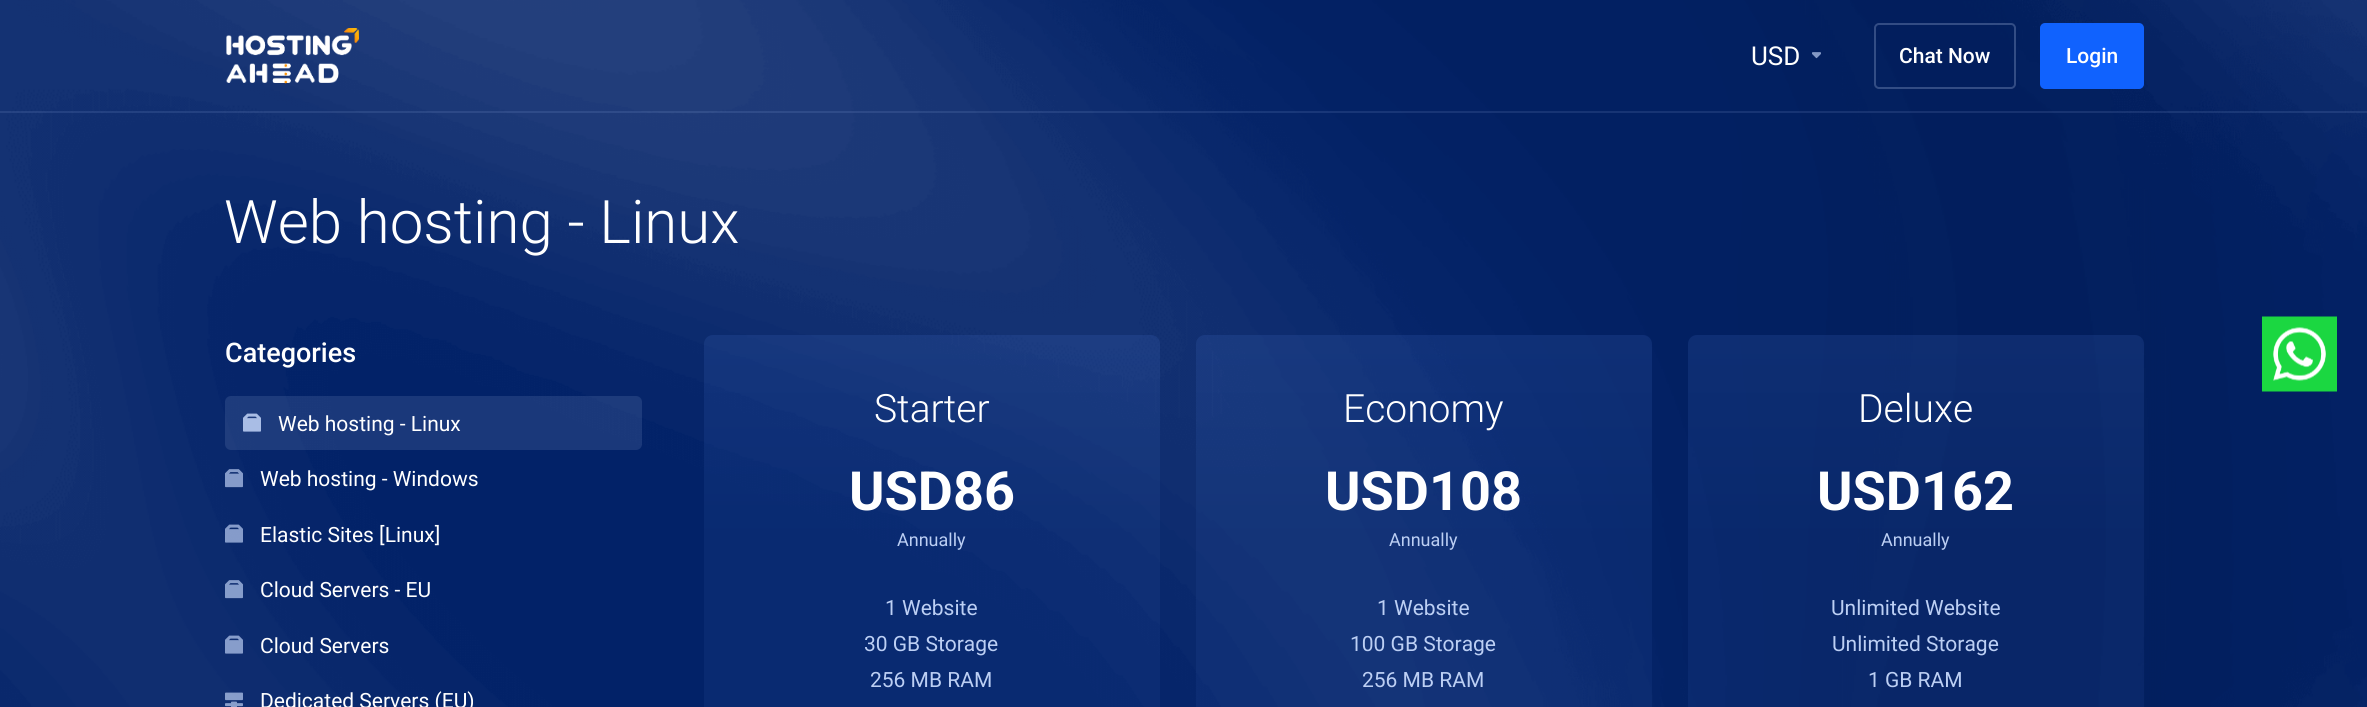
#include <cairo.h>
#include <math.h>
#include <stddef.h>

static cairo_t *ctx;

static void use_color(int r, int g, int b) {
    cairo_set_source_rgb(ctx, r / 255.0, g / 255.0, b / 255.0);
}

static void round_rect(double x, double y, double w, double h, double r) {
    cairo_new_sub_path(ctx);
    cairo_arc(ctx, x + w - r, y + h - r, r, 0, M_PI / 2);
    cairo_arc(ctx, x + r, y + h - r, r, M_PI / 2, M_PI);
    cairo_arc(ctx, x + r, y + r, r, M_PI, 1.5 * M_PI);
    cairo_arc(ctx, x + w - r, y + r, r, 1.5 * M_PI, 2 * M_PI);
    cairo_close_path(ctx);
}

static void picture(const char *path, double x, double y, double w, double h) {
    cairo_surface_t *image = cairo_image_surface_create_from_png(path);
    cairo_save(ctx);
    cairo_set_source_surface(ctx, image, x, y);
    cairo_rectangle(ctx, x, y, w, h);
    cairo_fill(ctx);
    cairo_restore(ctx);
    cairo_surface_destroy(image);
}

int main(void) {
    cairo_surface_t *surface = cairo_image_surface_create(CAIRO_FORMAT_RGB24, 2367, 707);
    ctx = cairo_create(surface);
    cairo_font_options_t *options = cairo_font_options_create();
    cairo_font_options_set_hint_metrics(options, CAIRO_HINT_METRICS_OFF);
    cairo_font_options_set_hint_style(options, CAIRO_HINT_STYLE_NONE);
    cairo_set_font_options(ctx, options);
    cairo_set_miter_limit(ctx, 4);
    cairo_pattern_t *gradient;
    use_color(2, 34, 104);
    cairo_paint(ctx);
    picture("img1.png", 0, 0, 2367, 707);
    cairo_set_source_rgba(ctx, 0.698, 0.8, 1, 0.12);
    cairo_rectangle(ctx, 0, 111, 2367, 2);
    cairo_fill(ctx);
    picture("img2.png", 226, 28, 133, 56);
    cairo_select_font_face(ctx, "Roboto", CAIRO_FONT_SLANT_NORMAL, CAIRO_FONT_WEIGHT_NORMAL);
    cairo_set_font_size(ctx, 26);
    use_color(255, 255, 255);
    cairo_move_to(ctx, 1751, 65);
    cairo_show_text(ctx, "USD");
    picture("img3.png", 1812, 52, 9, 7);
    round_rect(1875, 24, 140, 64, 4);
    cairo_set_source_rgba(ctx, 0.8, 0.867, 1, 0.24);
    cairo_stroke(ctx);
    cairo_select_font_face(ctx, "Roboto Medium", CAIRO_FONT_SLANT_NORMAL, CAIRO_FONT_WEIGHT_NORMAL);
    cairo_set_font_size(ctx, 21);
    use_color(255, 255, 255);
    cairo_move_to(ctx, 1899, 63);
    cairo_show_text(ctx, "Chat Now");
    use_color(16, 98, 254);
    round_rect(2041, 24, 102, 64, 4);
    cairo_fill_preserve(ctx);
    cairo_stroke(ctx);
    use_color(255, 255, 255);
    cairo_move_to(ctx, 2066, 63);
    cairo_show_text(ctx, "Login");
    cairo_select_font_face(ctx, "Roboto Light", CAIRO_FONT_SLANT_NORMAL, CAIRO_FONT_WEIGHT_NORMAL);
    cairo_set_font_size(ctx, 60);
    cairo_move_to(ctx, 224, 243);
    cairo_show_text(ctx, "Web hosting - Linux");
    cairo_select_font_face(ctx, "Roboto Medium", CAIRO_FONT_SLANT_NORMAL, CAIRO_FONT_WEIGHT_NORMAL);
    cairo_set_font_size(ctx, 27);
    cairo_move_to(ctx, 225, 362);
    cairo_show_text(ctx, "Categories");
    cairo_set_source_rgba(ctx, 0.8, 0.867, 1, 0.12);
    round_rect(225, 396, 417, 54, 6);
    cairo_fill(ctx);
    picture("img4.png", 243, 413, 18, 19);
    cairo_select_font_face(ctx, "Roboto", CAIRO_FONT_SLANT_NORMAL, CAIRO_FONT_WEIGHT_NORMAL);
    cairo_set_font_size(ctx, 21);
    use_color(255, 255, 255);
    cairo_move_to(ctx, 278, 431);
    cairo_show_text(ctx, "Web hosting - Linux");
    picture("img5.png", 225, 469, 18, 19);
    cairo_move_to(ctx, 260, 486);
    cairo_show_text(ctx, "Web hosting - Windows");
    picture("img6.png", 225, 524, 18, 19);
    cairo_move_to(ctx, 260, 542);
    cairo_show_text(ctx, "Elastic Sites [Linux]");
    picture("img7.png", 225, 580, 18, 19);
    cairo_move_to(ctx, 260, 597);
    cairo_show_text(ctx, "Cloud Servers - EU");
    picture("img8.png", 225, 635, 18, 19);
    cairo_move_to(ctx, 260, 653);
    cairo_show_text(ctx, "Cloud Servers");
    picture("img9.png", 225, 692, 18, 15);
    cairo_move_to(ctx, 260, 708);
    cairo_show_text(ctx, "Dedicated Servers (EU)");
    gradient = cairo_pattern_create_linear(932, 335, 932, 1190);
    cairo_pattern_add_color_stop_rgba(gradient, 0, 0.294, 0.471, 0.824, 0.16);
    cairo_pattern_add_color_stop_rgba(gradient, 0.24, 0.161, 0.322, 0.639, 0.16);
    cairo_pattern_add_color_stop_rgba(gradient, 1, 0.161, 0.322, 0.639, 0.16);
    cairo_set_source(ctx, gradient);
    cairo_pattern_destroy(gradient);
    round_rect(704, 335, 456, 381, 9);
    cairo_fill(ctx);
    cairo_select_font_face(ctx, "Roboto Light", CAIRO_FONT_SLANT_NORMAL, CAIRO_FONT_WEIGHT_NORMAL);
    cairo_set_font_size(ctx, 39);
    use_color(255, 255, 255);
    cairo_move_to(ctx, 874, 422);
    cairo_show_text(ctx, "Starter");
    cairo_select_font_face(ctx, "Roboto", CAIRO_FONT_SLANT_NORMAL, CAIRO_FONT_WEIGHT_BOLD);
    cairo_set_font_size(ctx, 54);
    cairo_move_to(ctx, 849, 510);
    cairo_show_text(ctx, "USD86");
    cairo_select_font_face(ctx, "Roboto", CAIRO_FONT_SLANT_NORMAL, CAIRO_FONT_WEIGHT_NORMAL);
    cairo_set_font_size(ctx, 18);
    use_color(188, 207, 244);
    cairo_move_to(ctx, 897, 546);
    cairo_show_text(ctx, "Annually");
    cairo_set_font_size(ctx, 21);
    cairo_move_to(ctx, 885, 615);
    cairo_show_text(ctx, "1 Website");
    cairo_move_to(ctx, 864, 651);
    cairo_show_text(ctx, "30 GB Storage");
    cairo_move_to(ctx, 870, 687);
    cairo_show_text(ctx, "256 MB RAM");
    gradient = cairo_pattern_create_linear(1424, 335, 1424, 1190);
    cairo_pattern_add_color_stop_rgba(gradient, 0, 0.294, 0.471, 0.824, 0.16);
    cairo_pattern_add_color_stop_rgba(gradient, 0.24, 0.161, 0.322, 0.639, 0.16);
    cairo_pattern_add_color_stop_rgba(gradient, 1, 0.161, 0.322, 0.639, 0.16);
    cairo_set_source(ctx, gradient);
    cairo_pattern_destroy(gradient);
    round_rect(1196, 335, 456, 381, 9);
    cairo_fill(ctx);
    cairo_select_font_face(ctx, "Roboto Light", CAIRO_FONT_SLANT_NORMAL, CAIRO_FONT_WEIGHT_NORMAL);
    cairo_set_font_size(ctx, 39);
    use_color(255, 255, 255);
    cairo_move_to(ctx, 1343, 422);
    cairo_show_text(ctx, "Economy");
    cairo_select_font_face(ctx, "Roboto", CAIRO_FONT_SLANT_NORMAL, CAIRO_FONT_WEIGHT_BOLD);
    cairo_set_font_size(ctx, 54);
    cairo_move_to(ctx, 1325, 510);
    cairo_show_text(ctx, "USD108");
    cairo_select_font_face(ctx, "Roboto", CAIRO_FONT_SLANT_NORMAL, CAIRO_FONT_WEIGHT_NORMAL);
    cairo_set_font_size(ctx, 18);
    use_color(188, 207, 244);
    cairo_move_to(ctx, 1389, 546);
    cairo_show_text(ctx, "Annually");
    cairo_set_font_size(ctx, 21);
    cairo_move_to(ctx, 1377, 615);
    cairo_show_text(ctx, "1 Website");
    cairo_move_to(ctx, 1350, 651);
    cairo_show_text(ctx, "100 GB Storage");
    cairo_move_to(ctx, 1362, 687);
    cairo_show_text(ctx, "256 MB RAM");
    gradient = cairo_pattern_create_linear(1916, 335, 1916, 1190);
    cairo_pattern_add_color_stop_rgba(gradient, 0, 0.294, 0.471, 0.824, 0.16);
    cairo_pattern_add_color_stop_rgba(gradient, 0.24, 0.161, 0.322, 0.639, 0.16);
    cairo_pattern_add_color_stop_rgba(gradient, 1, 0.161, 0.322, 0.639, 0.16);
    cairo_set_source(ctx, gradient);
    cairo_pattern_destroy(gradient);
    round_rect(1688, 335, 456, 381, 9);
    cairo_fill(ctx);
    cairo_select_font_face(ctx, "Roboto Light", CAIRO_FONT_SLANT_NORMAL, CAIRO_FONT_WEIGHT_NORMAL);
    cairo_set_font_size(ctx, 39);
    use_color(255, 255, 255);
    cairo_move_to(ctx, 1858, 422);
    cairo_show_text(ctx, "Deluxe");
    cairo_select_font_face(ctx, "Roboto", CAIRO_FONT_SLANT_NORMAL, CAIRO_FONT_WEIGHT_BOLD);
    cairo_set_font_size(ctx, 54);
    cairo_move_to(ctx, 1817, 510);
    cairo_show_text(ctx, "USD162");
    cairo_select_font_face(ctx, "Roboto", CAIRO_FONT_SLANT_NORMAL, CAIRO_FONT_WEIGHT_NORMAL);
    cairo_set_font_size(ctx, 18);
    use_color(188, 207, 244);
    cairo_move_to(ctx, 1881, 546);
    cairo_show_text(ctx, "Annually");
    cairo_set_font_size(ctx, 21);
    cairo_move_to(ctx, 1831, 615);
    cairo_show_text(ctx, "Unlimited Website");
    cairo_move_to(ctx, 1832, 651);
    cairo_show_text(ctx, "Unlimited Storage");
    cairo_move_to(ctx, 1868, 687);
    cairo_show_text(ctx, "1 GB RAM");
    picture("img10.png", 2262, 316, 75, 76);
    cairo_surface_write_to_png(surface, "result.png");
    cairo_font_options_destroy(options);
    cairo_destroy(ctx);
    cairo_surface_destroy(surface);
    return 0;
}
